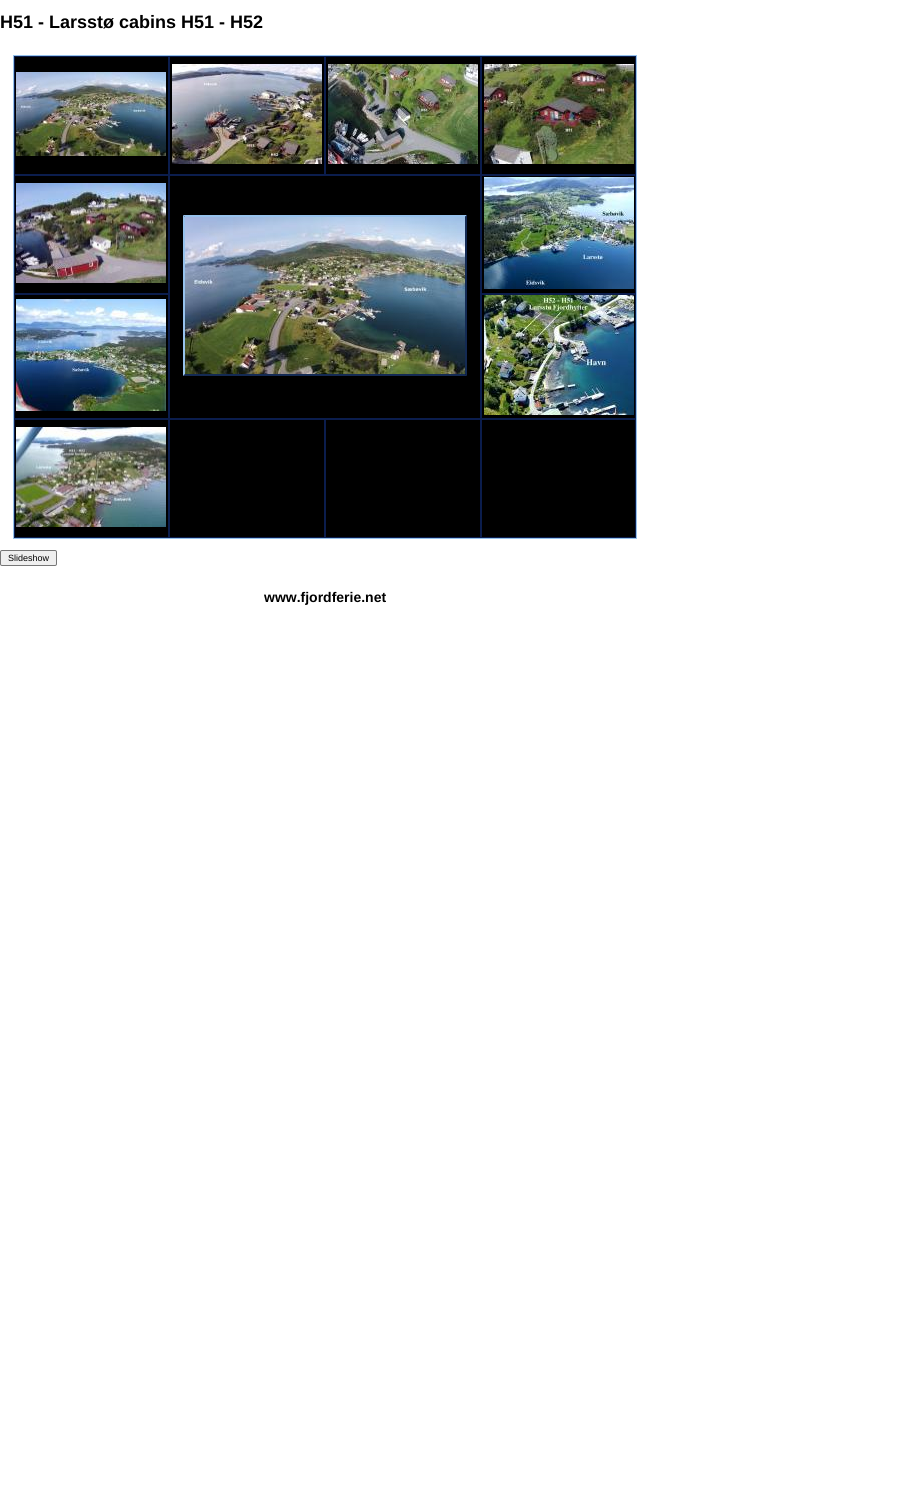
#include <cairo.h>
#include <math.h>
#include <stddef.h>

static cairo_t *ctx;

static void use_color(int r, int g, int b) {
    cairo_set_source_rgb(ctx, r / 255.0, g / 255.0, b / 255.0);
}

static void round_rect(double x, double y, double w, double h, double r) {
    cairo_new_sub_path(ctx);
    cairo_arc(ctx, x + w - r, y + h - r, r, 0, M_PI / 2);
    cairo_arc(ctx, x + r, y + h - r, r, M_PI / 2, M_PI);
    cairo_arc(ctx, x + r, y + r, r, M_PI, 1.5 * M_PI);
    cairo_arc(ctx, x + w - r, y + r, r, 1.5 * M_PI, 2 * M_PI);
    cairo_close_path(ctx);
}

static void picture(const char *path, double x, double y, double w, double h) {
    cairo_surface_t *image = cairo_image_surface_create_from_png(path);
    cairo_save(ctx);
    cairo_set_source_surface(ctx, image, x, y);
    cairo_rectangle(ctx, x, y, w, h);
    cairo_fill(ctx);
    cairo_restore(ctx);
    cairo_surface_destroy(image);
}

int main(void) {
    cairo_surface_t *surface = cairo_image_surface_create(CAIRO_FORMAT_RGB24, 918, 1500);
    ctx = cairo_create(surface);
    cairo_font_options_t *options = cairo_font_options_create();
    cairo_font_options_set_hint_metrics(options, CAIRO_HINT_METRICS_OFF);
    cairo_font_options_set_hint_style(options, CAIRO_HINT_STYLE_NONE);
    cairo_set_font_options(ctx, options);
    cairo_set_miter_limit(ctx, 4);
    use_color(255, 255, 255);
    cairo_paint(ctx);
    cairo_select_font_face(ctx, "Liberation Sans", CAIRO_FONT_SLANT_NORMAL, CAIRO_FONT_WEIGHT_BOLD);
    cairo_set_font_size(ctx, 18);
    use_color(0, 0, 0);
    cairo_move_to(ctx, 0, 28);
    cairo_show_text(ctx, "H51 - Larsstø cabins H51 - H52");
    cairo_rectangle(ctx, 15, 57, 620, 480);
    cairo_fill(ctx);
    cairo_rectangle(ctx, 13.5, 55.5, 623, 483);
    use_color(150, 194, 235);
    cairo_set_line_width(ctx, 1);
    cairo_stroke(ctx);
    cairo_rectangle(ctx, 14.5, 56.5, 154, 118);
    use_color(11, 29, 77);
    cairo_stroke(ctx);
    picture("img1.png", 16, 72, 150, 84);
    cairo_rectangle(ctx, 169.5, 56.5, 155, 118);
    cairo_stroke(ctx);
    picture("img2.png", 172, 64, 150, 100);
    cairo_rectangle(ctx, 325.5, 56.5, 155, 118);
    cairo_stroke(ctx);
    picture("img3.png", 328, 64, 150, 100);
    cairo_rectangle(ctx, 481.5, 56.5, 154, 118);
    cairo_stroke(ctx);
    picture("img4.png", 484, 64, 150, 100);
    cairo_rectangle(ctx, 14.5, 175.5, 154, 118);
    cairo_stroke(ctx);
    picture("img5.png", 16, 183, 150, 100);
    cairo_rectangle(ctx, 169.5, 175.5, 311, 243);
    cairo_stroke(ctx);
    use_color(151, 194, 236);
    cairo_new_path(ctx);
    cairo_move_to(ctx, 183, 215);
    cairo_line_to(ctx, 467, 215);
    cairo_line_to(ctx, 465, 217);
    cairo_line_to(ctx, 185, 217);
    cairo_close_path(ctx);
    cairo_fill(ctx);
    use_color(20, 42, 83);
    cairo_new_path(ctx);
    cairo_move_to(ctx, 467, 215);
    cairo_line_to(ctx, 467, 376);
    cairo_line_to(ctx, 465, 374);
    cairo_line_to(ctx, 465, 217);
    cairo_close_path(ctx);
    cairo_fill(ctx);
    cairo_new_path(ctx);
    cairo_move_to(ctx, 467, 376);
    cairo_line_to(ctx, 183, 376);
    cairo_line_to(ctx, 185, 374);
    cairo_line_to(ctx, 465, 374);
    cairo_close_path(ctx);
    cairo_fill(ctx);
    use_color(151, 194, 236);
    cairo_new_path(ctx);
    cairo_move_to(ctx, 183, 376);
    cairo_line_to(ctx, 183, 215);
    cairo_line_to(ctx, 185, 217);
    cairo_line_to(ctx, 185, 374);
    cairo_close_path(ctx);
    cairo_fill(ctx);
    picture("img6.png", 185, 217, 280, 157);
    cairo_rectangle(ctx, 481.5, 175.5, 154, 118);
    use_color(11, 29, 77);
    cairo_stroke(ctx);
    picture("img7.png", 484, 177, 150, 112);
    cairo_rectangle(ctx, 14.5, 294.5, 154, 124);
    cairo_stroke(ctx);
    picture("img8.png", 16, 299, 150, 112);
    cairo_rectangle(ctx, 481.5, 294.5, 154, 124);
    cairo_stroke(ctx);
    picture("img9.png", 484, 295, 150, 120);
    cairo_rectangle(ctx, 14.5, 419.5, 154, 118);
    cairo_stroke(ctx);
    picture("img10.png", 16, 427, 150, 100);
    cairo_rectangle(ctx, 169.5, 419.5, 155, 118);
    cairo_stroke(ctx);
    cairo_rectangle(ctx, 325.5, 419.5, 155, 118);
    cairo_stroke(ctx);
    cairo_rectangle(ctx, 481.5, 419.5, 154, 118);
    cairo_stroke(ctx);
    use_color(239, 239, 239);
    round_rect(0.5, 550.5, 56, 15, 1.5);
    cairo_fill_preserve(ctx);
    use_color(118, 118, 118);
    cairo_stroke(ctx);
    cairo_select_font_face(ctx, "Liberation Sans", CAIRO_FONT_SLANT_NORMAL, CAIRO_FONT_WEIGHT_NORMAL);
    cairo_set_font_size(ctx, 9);
    use_color(0, 0, 0);
    cairo_move_to(ctx, 8, 561);
    cairo_show_text(ctx, "Slideshow");
    cairo_select_font_face(ctx, "Liberation Sans", CAIRO_FONT_SLANT_NORMAL, CAIRO_FONT_WEIGHT_BOLD);
    cairo_set_font_size(ctx, 14);
    cairo_move_to(ctx, 264, 602);
    cairo_show_text(ctx, "www.fjordferie.net");
    cairo_surface_write_to_png(surface, "result.png");
    cairo_font_options_destroy(options);
    cairo_destroy(ctx);
    cairo_surface_destroy(surface);
    return 0;
}
